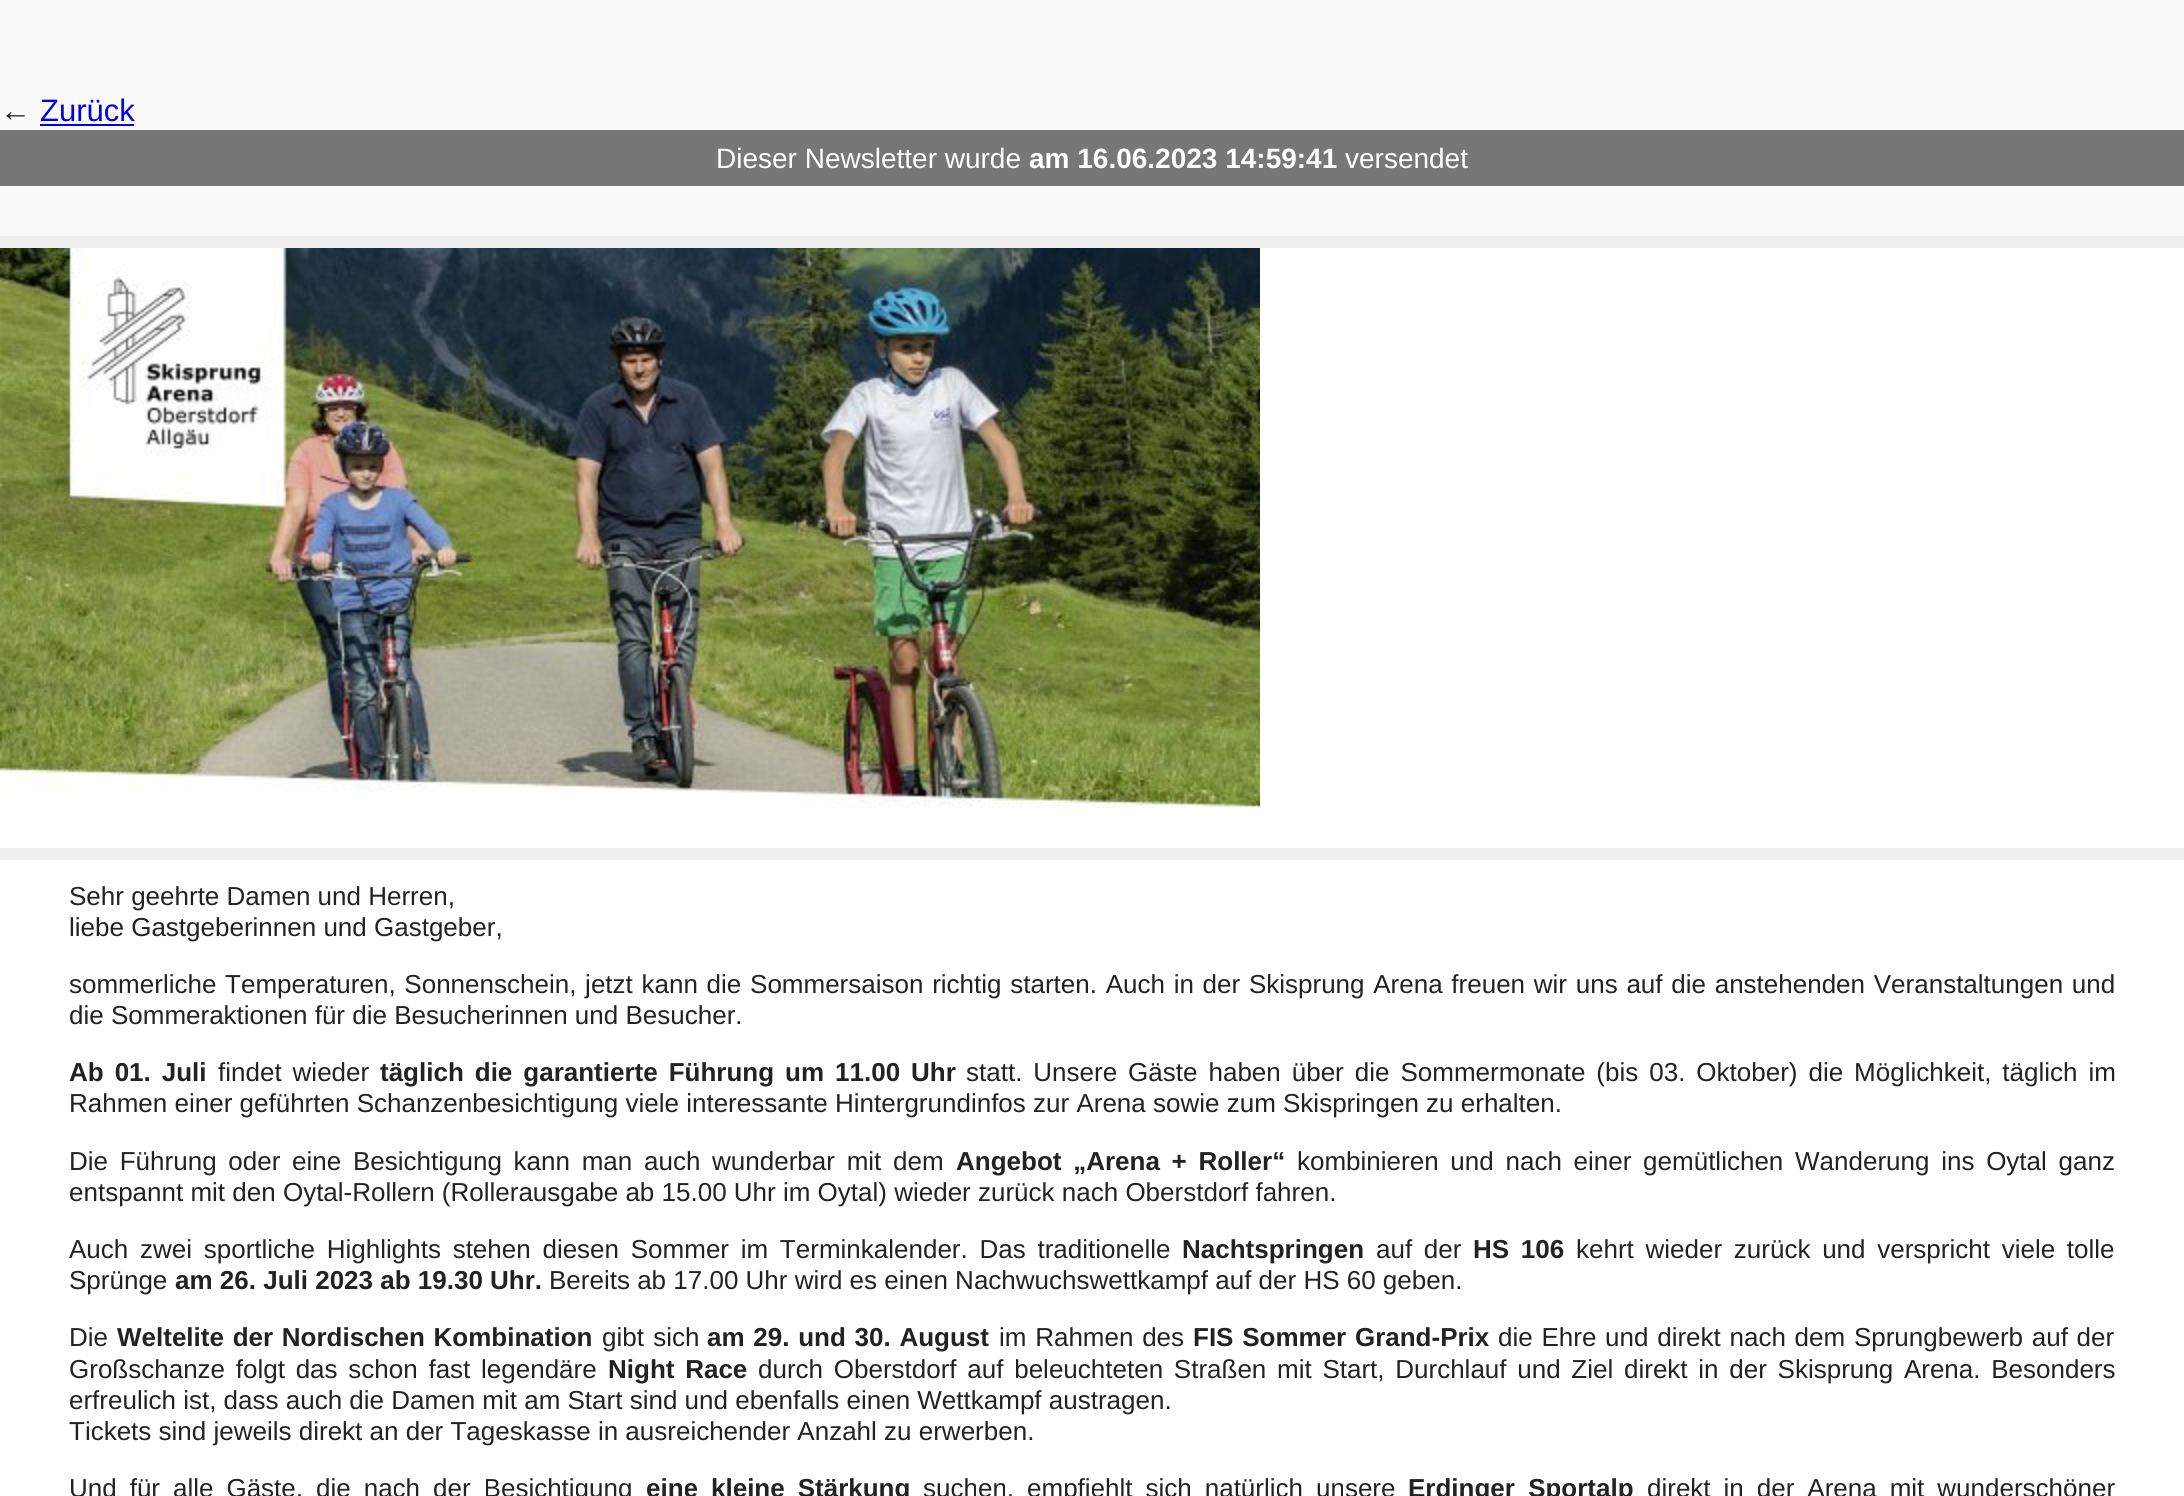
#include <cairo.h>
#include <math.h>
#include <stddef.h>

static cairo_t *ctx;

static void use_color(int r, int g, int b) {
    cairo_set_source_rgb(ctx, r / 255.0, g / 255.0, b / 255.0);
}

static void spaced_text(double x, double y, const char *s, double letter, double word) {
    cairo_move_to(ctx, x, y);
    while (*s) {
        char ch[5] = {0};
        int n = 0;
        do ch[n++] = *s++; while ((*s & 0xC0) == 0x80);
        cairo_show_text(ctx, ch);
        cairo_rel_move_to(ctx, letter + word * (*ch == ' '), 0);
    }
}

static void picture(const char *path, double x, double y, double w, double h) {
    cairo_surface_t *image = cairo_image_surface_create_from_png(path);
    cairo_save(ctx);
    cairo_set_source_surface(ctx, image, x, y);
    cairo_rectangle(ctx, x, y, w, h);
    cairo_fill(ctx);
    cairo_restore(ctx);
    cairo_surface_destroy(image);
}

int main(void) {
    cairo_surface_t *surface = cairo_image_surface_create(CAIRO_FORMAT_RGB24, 2184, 1496);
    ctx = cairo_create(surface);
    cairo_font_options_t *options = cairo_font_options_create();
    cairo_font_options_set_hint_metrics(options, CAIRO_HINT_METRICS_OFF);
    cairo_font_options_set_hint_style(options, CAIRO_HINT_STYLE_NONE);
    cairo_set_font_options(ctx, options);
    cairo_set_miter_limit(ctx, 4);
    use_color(250, 250, 250);
    cairo_paint(ctx);
    cairo_select_font_face(ctx, "Liberation Sans", CAIRO_FONT_SLANT_NORMAL, CAIRO_FONT_WEIGHT_NORMAL);
    cairo_set_font_size(ctx, 31);
    use_color(34, 34, 34);
    cairo_move_to(ctx, 0, 121);
    cairo_show_text(ctx, "←");
    use_color(0, 0, 238);
    cairo_move_to(ctx, 40, 121);
    cairo_show_text(ctx, "Zurück");
    cairo_rectangle(ctx, 40, 124, 94, 2);
    cairo_fill(ctx);
    use_color(119, 119, 119);
    cairo_rectangle(ctx, 0, 130, 2184, 56);
    cairo_fill(ctx);
    cairo_set_font_size(ctx, 28);
    use_color(255, 255, 255);
    cairo_move_to(ctx, 716, 168);
    cairo_show_text(ctx, "Dieser Newsletter wurde");
    cairo_select_font_face(ctx, "Liberation Sans", CAIRO_FONT_SLANT_NORMAL, CAIRO_FONT_WEIGHT_BOLD);
    cairo_move_to(ctx, 1029, 168);
    cairo_show_text(ctx, "am 16.06.2023 14:59:41");
    cairo_select_font_face(ctx, "Liberation Sans", CAIRO_FONT_SLANT_NORMAL, CAIRO_FONT_WEIGHT_NORMAL);
    cairo_move_to(ctx, 1345, 168);
    cairo_show_text(ctx, "versendet");
    use_color(238, 238, 238);
    cairo_rectangle(ctx, 0, 236, 2184, 624);
    cairo_fill(ctx);
    use_color(255, 255, 255);
    cairo_rectangle(ctx, 0, 248, 2184, 600);
    cairo_fill(ctx);
    picture("img1.png", 0, 248, 1260, 560);
    cairo_rectangle(ctx, 0, 860, 2184, 636);
    cairo_fill(ctx);
    cairo_set_font_size(ctx, 26);
    use_color(34, 34, 34);
    cairo_move_to(ctx, 69, 905);
    cairo_show_text(ctx, "Sehr geehrte Damen und Herren,");
    cairo_move_to(ctx, 69, 936);
    cairo_show_text(ctx, "liebe Gastgeberinnen und Gastgeber,");
    spaced_text(69, 993, "sommerliche Temperaturen, Sonnenschein, jetzt kann die Sommersaison richtig starten. Auch in der Skisprung Arena freuen wir uns auf die anstehenden Veranstaltungen und", 0, 1.5);
    cairo_move_to(ctx, 69, 1024);
    cairo_show_text(ctx, "die Sommeraktionen für die Besucherinnen und Besucher.");
    cairo_select_font_face(ctx, "Liberation Sans", CAIRO_FONT_SLANT_NORMAL, CAIRO_FONT_WEIGHT_BOLD);
    spaced_text(69, 1081, "Ab 01. Juli", 0, 3.75);
    cairo_select_font_face(ctx, "Liberation Sans", CAIRO_FONT_SLANT_NORMAL, CAIRO_FONT_WEIGHT_NORMAL);
    spaced_text(218, 1081, "findet wieder", 0, 3.75);
    cairo_select_font_face(ctx, "Liberation Sans", CAIRO_FONT_SLANT_NORMAL, CAIRO_FONT_WEIGHT_BOLD);
    spaced_text(380, 1081, "täglich die garantierte Führung um 11.00 Uhr", 0, 3.75);
    cairo_select_font_face(ctx, "Liberation Sans", CAIRO_FONT_SLANT_NORMAL, CAIRO_FONT_WEIGHT_NORMAL);
    spaced_text(966, 1081, "statt. Unsere Gäste haben über die Sommermonate (bis 03. Oktober) die Möglichkeit, täglich im", 0, 3.75);
    cairo_move_to(ctx, 69, 1112);
    cairo_show_text(ctx, "Rahmen einer geführten Schanzenbesichtigung viele interessante Hintergrundinfos zur Arena sowie zum Skispringen zu erhalten.");
    spaced_text(69, 1170, "Die Führung oder eine Besichtigung kann man auch wunderbar mit dem", 0, 4.5);
    cairo_select_font_face(ctx, "Liberation Sans", CAIRO_FONT_SLANT_NORMAL, CAIRO_FONT_WEIGHT_BOLD);
    spaced_text(956, 1170, "Angebot „Arena + Roller“", 0, 4.5);
    cairo_select_font_face(ctx, "Liberation Sans", CAIRO_FONT_SLANT_NORMAL, CAIRO_FONT_WEIGHT_NORMAL);
    spaced_text(1297, 1170, "kombinieren und nach einer gemütlichen Wanderung ins Oytal ganz", 0, 4.5);
    cairo_move_to(ctx, 69, 1201);
    cairo_show_text(ctx, "entspannt mit den Oytal-Rollern (Rollerausgabe ab 15.00 Uhr im Oytal) wieder zurück nach Oberstdorf fahren.");
    spaced_text(69, 1258, "Auch zwei sportliche Highlights stehen diesen Sommer im Terminkalender. Das traditionelle", 0, 4.5);
    cairo_select_font_face(ctx, "Liberation Sans", CAIRO_FONT_SLANT_NORMAL, CAIRO_FONT_WEIGHT_BOLD);
    cairo_move_to(ctx, 1182, 1258);
    cairo_show_text(ctx, "Nachtspringen");
    cairo_select_font_face(ctx, "Liberation Sans", CAIRO_FONT_SLANT_NORMAL, CAIRO_FONT_WEIGHT_NORMAL);
    spaced_text(1376, 1258, "auf der", 0, 4.5);
    cairo_select_font_face(ctx, "Liberation Sans", CAIRO_FONT_SLANT_NORMAL, CAIRO_FONT_WEIGHT_BOLD);
    spaced_text(1473, 1258, "HS 106", 0, 4.5);
    cairo_select_font_face(ctx, "Liberation Sans", CAIRO_FONT_SLANT_NORMAL, CAIRO_FONT_WEIGHT_NORMAL);
    spaced_text(1576, 1258, "kehrt wieder zurück und verspricht viele tolle", 0, 4.5);
    cairo_move_to(ctx, 69, 1289);
    cairo_show_text(ctx, "Sprünge");
    cairo_select_font_face(ctx, "Liberation Sans", CAIRO_FONT_SLANT_NORMAL, CAIRO_FONT_WEIGHT_BOLD);
    cairo_move_to(ctx, 175, 1289);
    cairo_show_text(ctx, "am 26. Juli 2023 ab 19.30 Uhr.");
    cairo_select_font_face(ctx, "Liberation Sans", CAIRO_FONT_SLANT_NORMAL, CAIRO_FONT_WEIGHT_NORMAL);
    cairo_move_to(ctx, 549, 1289);
    cairo_show_text(ctx, "Bereits ab 17.00 Uhr wird es einen Nachwuchswettkampf auf der HS 60 geben.");
    cairo_move_to(ctx, 69, 1346);
    cairo_show_text(ctx, "Die");
    cairo_select_font_face(ctx, "Liberation Sans", CAIRO_FONT_SLANT_NORMAL, CAIRO_FONT_WEIGHT_BOLD);
    spaced_text(117, 1346, "Weltelite der Nordischen Kombination", 0, 1.5);
    cairo_select_font_face(ctx, "Liberation Sans", CAIRO_FONT_SLANT_NORMAL, CAIRO_FONT_WEIGHT_NORMAL);
    spaced_text(602, 1346, "gibt sich", 0, 2);
    cairo_select_font_face(ctx, "Liberation Sans", CAIRO_FONT_SLANT_NORMAL, CAIRO_FONT_WEIGHT_BOLD);
    spaced_text(707, 1346, "am 29. und 30. August", 0, 1.5);
    cairo_select_font_face(ctx, "Liberation Sans", CAIRO_FONT_SLANT_NORMAL, CAIRO_FONT_WEIGHT_NORMAL);
    spaced_text(999, 1346, "im Rahmen des", 0, 1.5);
    cairo_select_font_face(ctx, "Liberation Sans", CAIRO_FONT_SLANT_NORMAL, CAIRO_FONT_WEIGHT_BOLD);
    spaced_text(1193, 1346, "FIS Sommer Grand-Prix", 0, 1.5);
    cairo_select_font_face(ctx, "Liberation Sans", CAIRO_FONT_SLANT_NORMAL, CAIRO_FONT_WEIGHT_NORMAL);
    spaced_text(1498, 1346, "die Ehre und direkt nach dem Sprungbewerb auf der", 0, 1.5);
    spaced_text(69, 1378, "Großschanze folgt das schon fast legendäre", 0, 3.5);
    cairo_select_font_face(ctx, "Liberation Sans", CAIRO_FONT_SLANT_NORMAL, CAIRO_FONT_WEIGHT_BOLD);
    spaced_text(608, 1378, "Night Race", 0, 3.5);
    cairo_select_font_face(ctx, "Liberation Sans", CAIRO_FONT_SLANT_NORMAL, CAIRO_FONT_WEIGHT_NORMAL);
    spaced_text(758, 1378, "durch Oberstdorf auf beleuchteten Straßen mit Start, Durchlauf und Ziel direkt in der Skisprung Arena. Besonders", 0, 3.5);
    cairo_move_to(ctx, 69, 1409);
    cairo_show_text(ctx, "erfreulich ist, dass auch die Damen mit am Start sind und ebenfalls einen Wettkampf austragen.");
    cairo_move_to(ctx, 69, 1440);
    cairo_show_text(ctx, "Tickets sind jeweils direkt an der Tageskasse in ausreichender Anzahl zu erwerben.");
    spaced_text(69, 1497, "Und für alle Gäste, die nach der Besichtigung", 0, 5.75);
    cairo_select_font_face(ctx, "Liberation Sans", CAIRO_FONT_SLANT_NORMAL, CAIRO_FONT_WEIGHT_BOLD);
    spaced_text(646, 1497, "eine kleine Stärkung", 0, 5.75);
    cairo_select_font_face(ctx, "Liberation Sans", CAIRO_FONT_SLANT_NORMAL, CAIRO_FONT_WEIGHT_NORMAL);
    spaced_text(923, 1497, "suchen, empfiehlt sich natürlich unsere", 0, 5.75);
    cairo_select_font_face(ctx, "Liberation Sans", CAIRO_FONT_SLANT_NORMAL, CAIRO_FONT_WEIGHT_BOLD);
    spaced_text(1408, 1497, "Erdinger Sportalp", 0, 6);
    cairo_select_font_face(ctx, "Liberation Sans", CAIRO_FONT_SLANT_NORMAL, CAIRO_FONT_WEIGHT_NORMAL);
    spaced_text(1647, 1497, "direkt in der Arena mit wunderschöner", 0, 5.75);
    cairo_surface_write_to_png(surface, "result.png");
    cairo_font_options_destroy(options);
    cairo_destroy(ctx);
    cairo_surface_destroy(surface);
    return 0;
}
